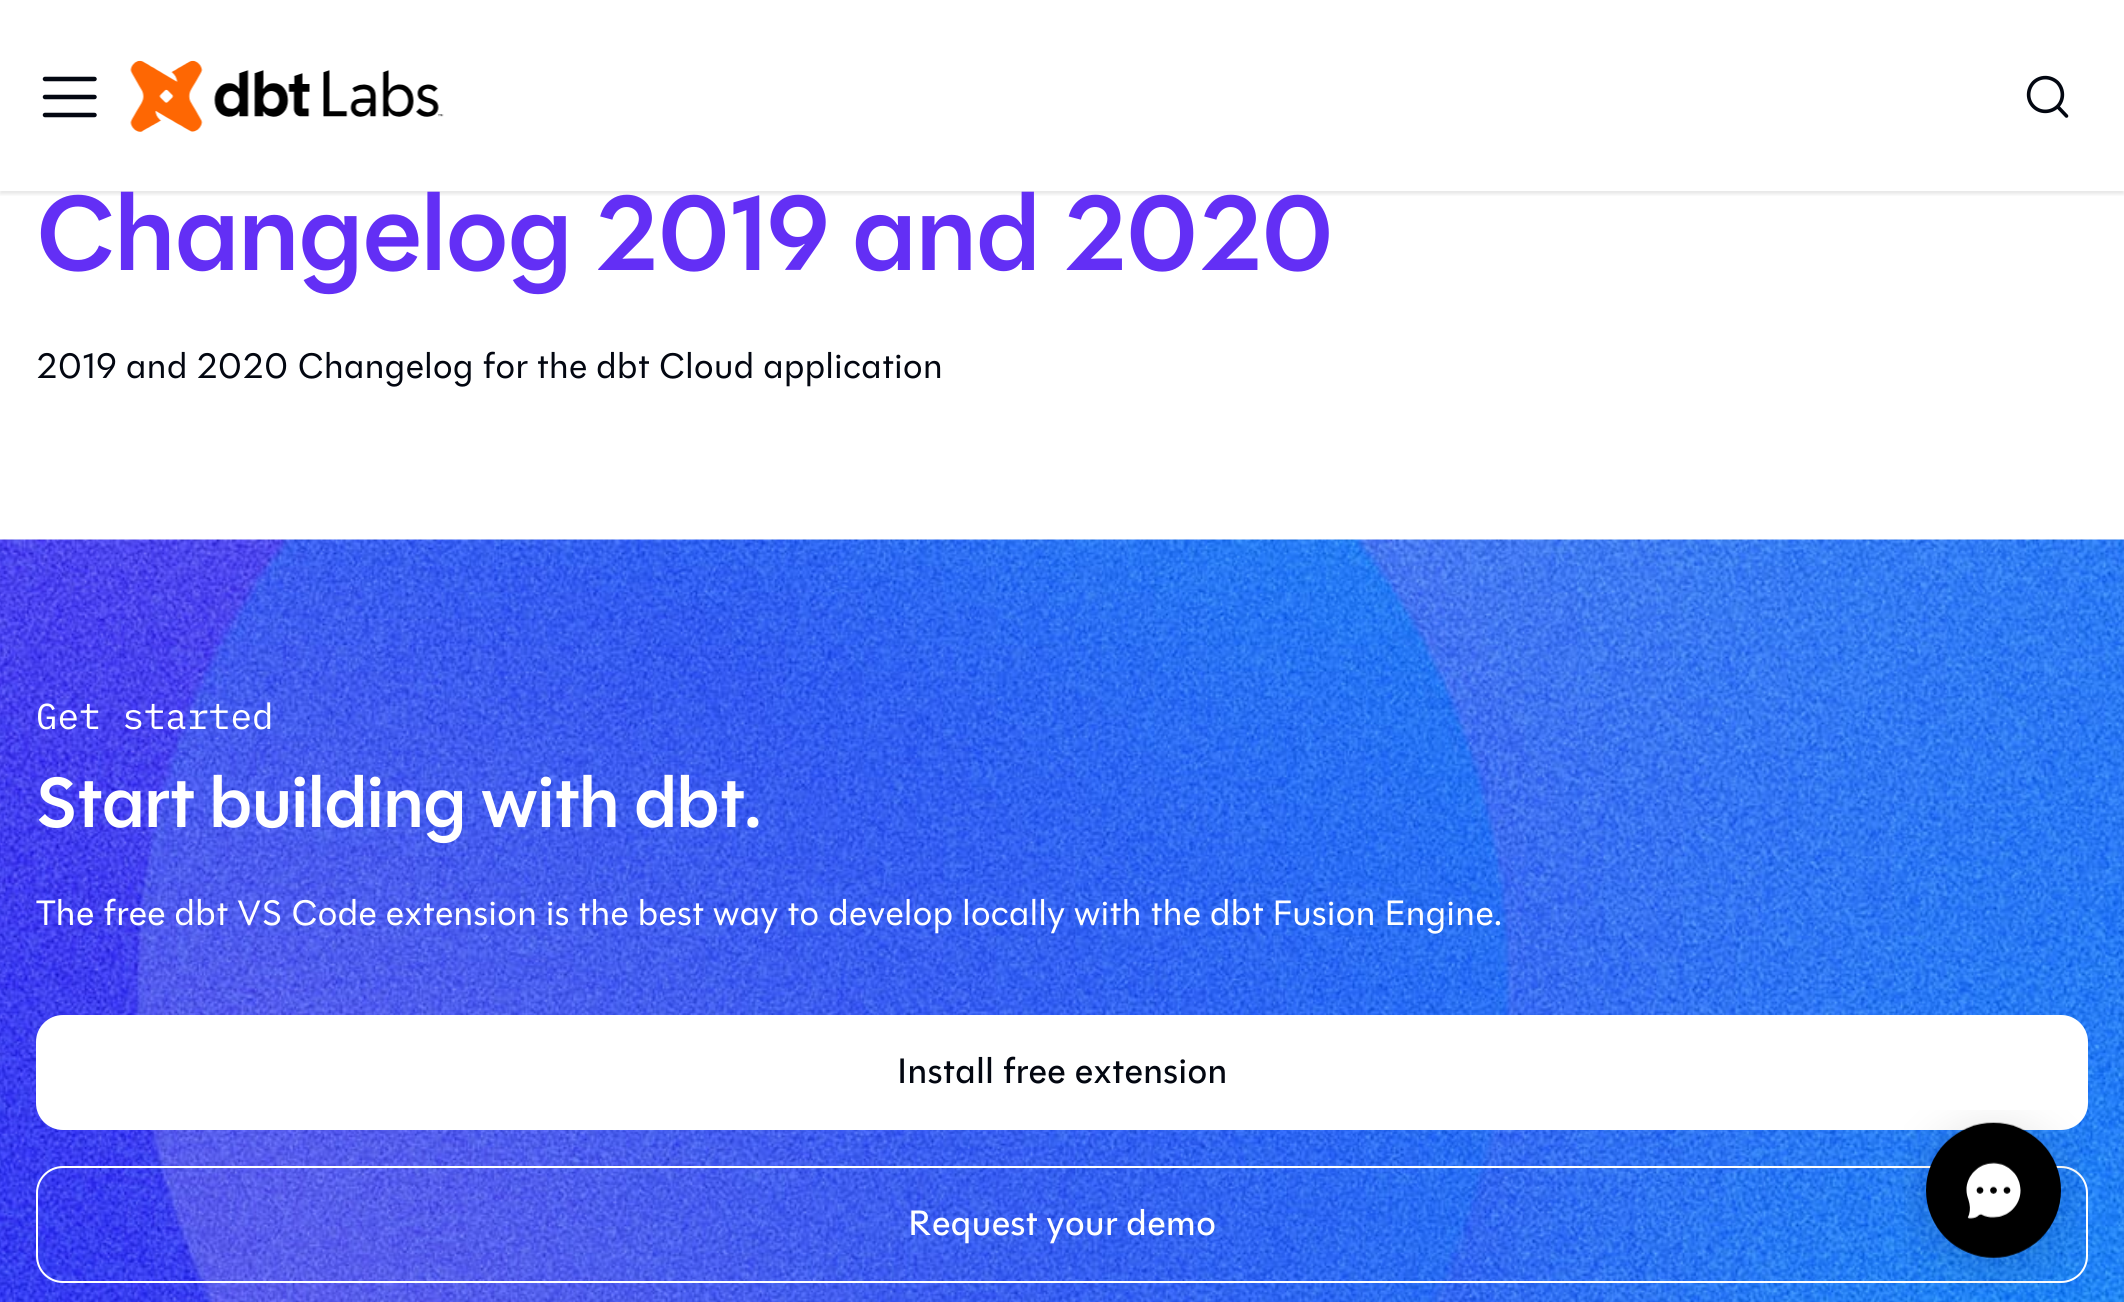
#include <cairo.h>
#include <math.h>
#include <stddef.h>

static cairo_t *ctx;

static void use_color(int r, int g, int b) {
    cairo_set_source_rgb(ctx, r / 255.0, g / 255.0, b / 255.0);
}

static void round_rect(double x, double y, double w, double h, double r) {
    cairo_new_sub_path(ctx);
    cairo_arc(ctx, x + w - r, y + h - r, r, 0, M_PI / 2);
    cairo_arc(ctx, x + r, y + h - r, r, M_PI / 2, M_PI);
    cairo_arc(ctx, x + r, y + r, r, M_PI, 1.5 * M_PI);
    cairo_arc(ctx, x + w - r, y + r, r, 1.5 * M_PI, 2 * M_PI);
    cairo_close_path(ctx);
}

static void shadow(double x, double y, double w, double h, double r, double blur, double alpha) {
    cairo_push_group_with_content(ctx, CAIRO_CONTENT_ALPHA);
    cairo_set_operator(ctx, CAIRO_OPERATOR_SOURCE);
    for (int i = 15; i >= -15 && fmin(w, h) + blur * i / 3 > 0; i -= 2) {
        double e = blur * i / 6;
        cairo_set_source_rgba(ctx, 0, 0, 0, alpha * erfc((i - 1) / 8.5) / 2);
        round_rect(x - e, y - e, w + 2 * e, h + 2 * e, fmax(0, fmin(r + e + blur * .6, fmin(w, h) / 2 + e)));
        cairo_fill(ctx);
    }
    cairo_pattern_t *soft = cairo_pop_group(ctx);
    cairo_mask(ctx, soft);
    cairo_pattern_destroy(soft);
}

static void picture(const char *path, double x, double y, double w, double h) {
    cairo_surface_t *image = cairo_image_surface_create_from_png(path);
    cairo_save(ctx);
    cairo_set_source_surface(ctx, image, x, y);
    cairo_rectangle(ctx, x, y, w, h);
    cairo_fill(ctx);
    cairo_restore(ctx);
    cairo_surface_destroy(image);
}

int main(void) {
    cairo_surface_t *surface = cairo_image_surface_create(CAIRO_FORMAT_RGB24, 2124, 1302);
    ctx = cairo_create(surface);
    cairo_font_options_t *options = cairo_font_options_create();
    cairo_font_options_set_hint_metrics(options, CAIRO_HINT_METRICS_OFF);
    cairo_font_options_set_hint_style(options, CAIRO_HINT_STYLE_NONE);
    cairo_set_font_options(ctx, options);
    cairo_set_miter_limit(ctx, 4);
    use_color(255, 255, 255);
    cairo_paint(ctx);
    cairo_save(ctx);
    cairo_rectangle(ctx, 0, 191, 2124, 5);
    cairo_clip(ctx);
    use_color(0, 0, 0);
    shadow(0, 2, 2124, 192, 0, 2, 0.1);
    cairo_restore(ctx);
    cairo_new_path(ctx);
    cairo_move_to(ctx, 45, 79);
    cairo_line_to(ctx, 94.5, 79);
    cairo_move_to(ctx, 45, 97);
    cairo_line_to(ctx, 94.5, 97);
    cairo_move_to(ctx, 45, 115);
    cairo_line_to(ctx, 94.5, 115);
    use_color(3, 7, 17);
    cairo_set_line_width(ctx, 4.5);
    cairo_set_line_cap(ctx, CAIRO_LINE_CAP_ROUND);
    cairo_stroke(ctx);
    picture("img1.png", 130, 60, 314, 72);
    cairo_new_path(ctx);
    cairo_move_to(ctx, 2057.5, 106.5);
    cairo_line_to(ctx, 2066.5, 116);
    cairo_line_to(ctx, 2057.5, 106.5);
    cairo_curve_to(ctx, 2050.5, 113, 2040, 113, 2033.5, 106.5);
    cairo_curve_to(ctx, 2027, 100, 2027, 89.5, 2033.5, 82.5);
    cairo_curve_to(ctx, 2040, 76, 2050.5, 76, 2057.5, 82.5);
    cairo_curve_to(ctx, 2064, 89.5, 2064, 100, 2057.5, 106.5);
    cairo_close_path(ctx);
    cairo_set_line_width(ctx, 3.6);
    cairo_set_line_join(ctx, CAIRO_LINE_JOIN_ROUND);
    cairo_stroke(ctx);
    cairo_select_font_face(ctx, "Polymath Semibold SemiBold", CAIRO_FONT_SLANT_NORMAL, CAIRO_FONT_WEIGHT_NORMAL);
    cairo_set_font_size(ctx, 108);
    use_color(99, 47, 245);
    cairo_move_to(ctx, 36, 270);
    cairo_show_text(ctx, "Changelog 2019 and 2020");
    cairo_select_font_face(ctx, "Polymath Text", CAIRO_FONT_SLANT_NORMAL, CAIRO_FONT_WEIGHT_NORMAL);
    cairo_set_font_size(ctx, 36);
    use_color(3, 7, 17);
    cairo_move_to(ctx, 36, 378);
    cairo_show_text(ctx, "2019 and 2020 Changelog for the dbt Cloud application");
    picture("img2.png", 0, 539, 2124, 763);
    cairo_select_font_face(ctx, "IBM Plex Mono", CAIRO_FONT_SLANT_NORMAL, CAIRO_FONT_WEIGHT_NORMAL);
    use_color(255, 255, 255);
    cairo_move_to(ctx, 36, 729);
    cairo_show_text(ctx, "Get started");
    cairo_select_font_face(ctx, "Polymath Semibold SemiBold", CAIRO_FONT_SLANT_NORMAL, CAIRO_FONT_WEIGHT_NORMAL);
    cairo_set_font_size(ctx, 72);
    cairo_move_to(ctx, 36, 827);
    cairo_show_text(ctx, "Start building with dbt.");
    cairo_select_font_face(ctx, "Polymath Text", CAIRO_FONT_SLANT_NORMAL, CAIRO_FONT_WEIGHT_NORMAL);
    cairo_set_font_size(ctx, 36);
    cairo_move_to(ctx, 36, 925);
    cairo_show_text(ctx, "The free dbt VS Code extension is the best way to develop locally with the dbt Fusion Engine.");
    round_rect(36, 1015, 2052, 115, 27);
    cairo_fill(ctx);
    cairo_select_font_face(ctx, "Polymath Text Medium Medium", CAIRO_FONT_SLANT_NORMAL, CAIRO_FONT_WEIGHT_NORMAL);
    use_color(3, 7, 17);
    cairo_move_to(ctx, 897, 1083);
    cairo_show_text(ctx, "Install free extension");
    round_rect(37, 1167, 2050, 115, 26);
    use_color(255, 255, 255);
    cairo_set_line_width(ctx, 2);
    cairo_set_line_cap(ctx, CAIRO_LINE_CAP_BUTT);
    cairo_set_line_join(ctx, CAIRO_LINE_JOIN_MITER);
    cairo_stroke(ctx);
    cairo_move_to(ctx, 908, 1235);
    cairo_show_text(ctx, "Request your demo");
    picture("img3.png", 1904, 1110, 179, 178);
    cairo_surface_write_to_png(surface, "result.png");
    cairo_font_options_destroy(options);
    cairo_destroy(ctx);
    cairo_surface_destroy(surface);
    return 0;
}
